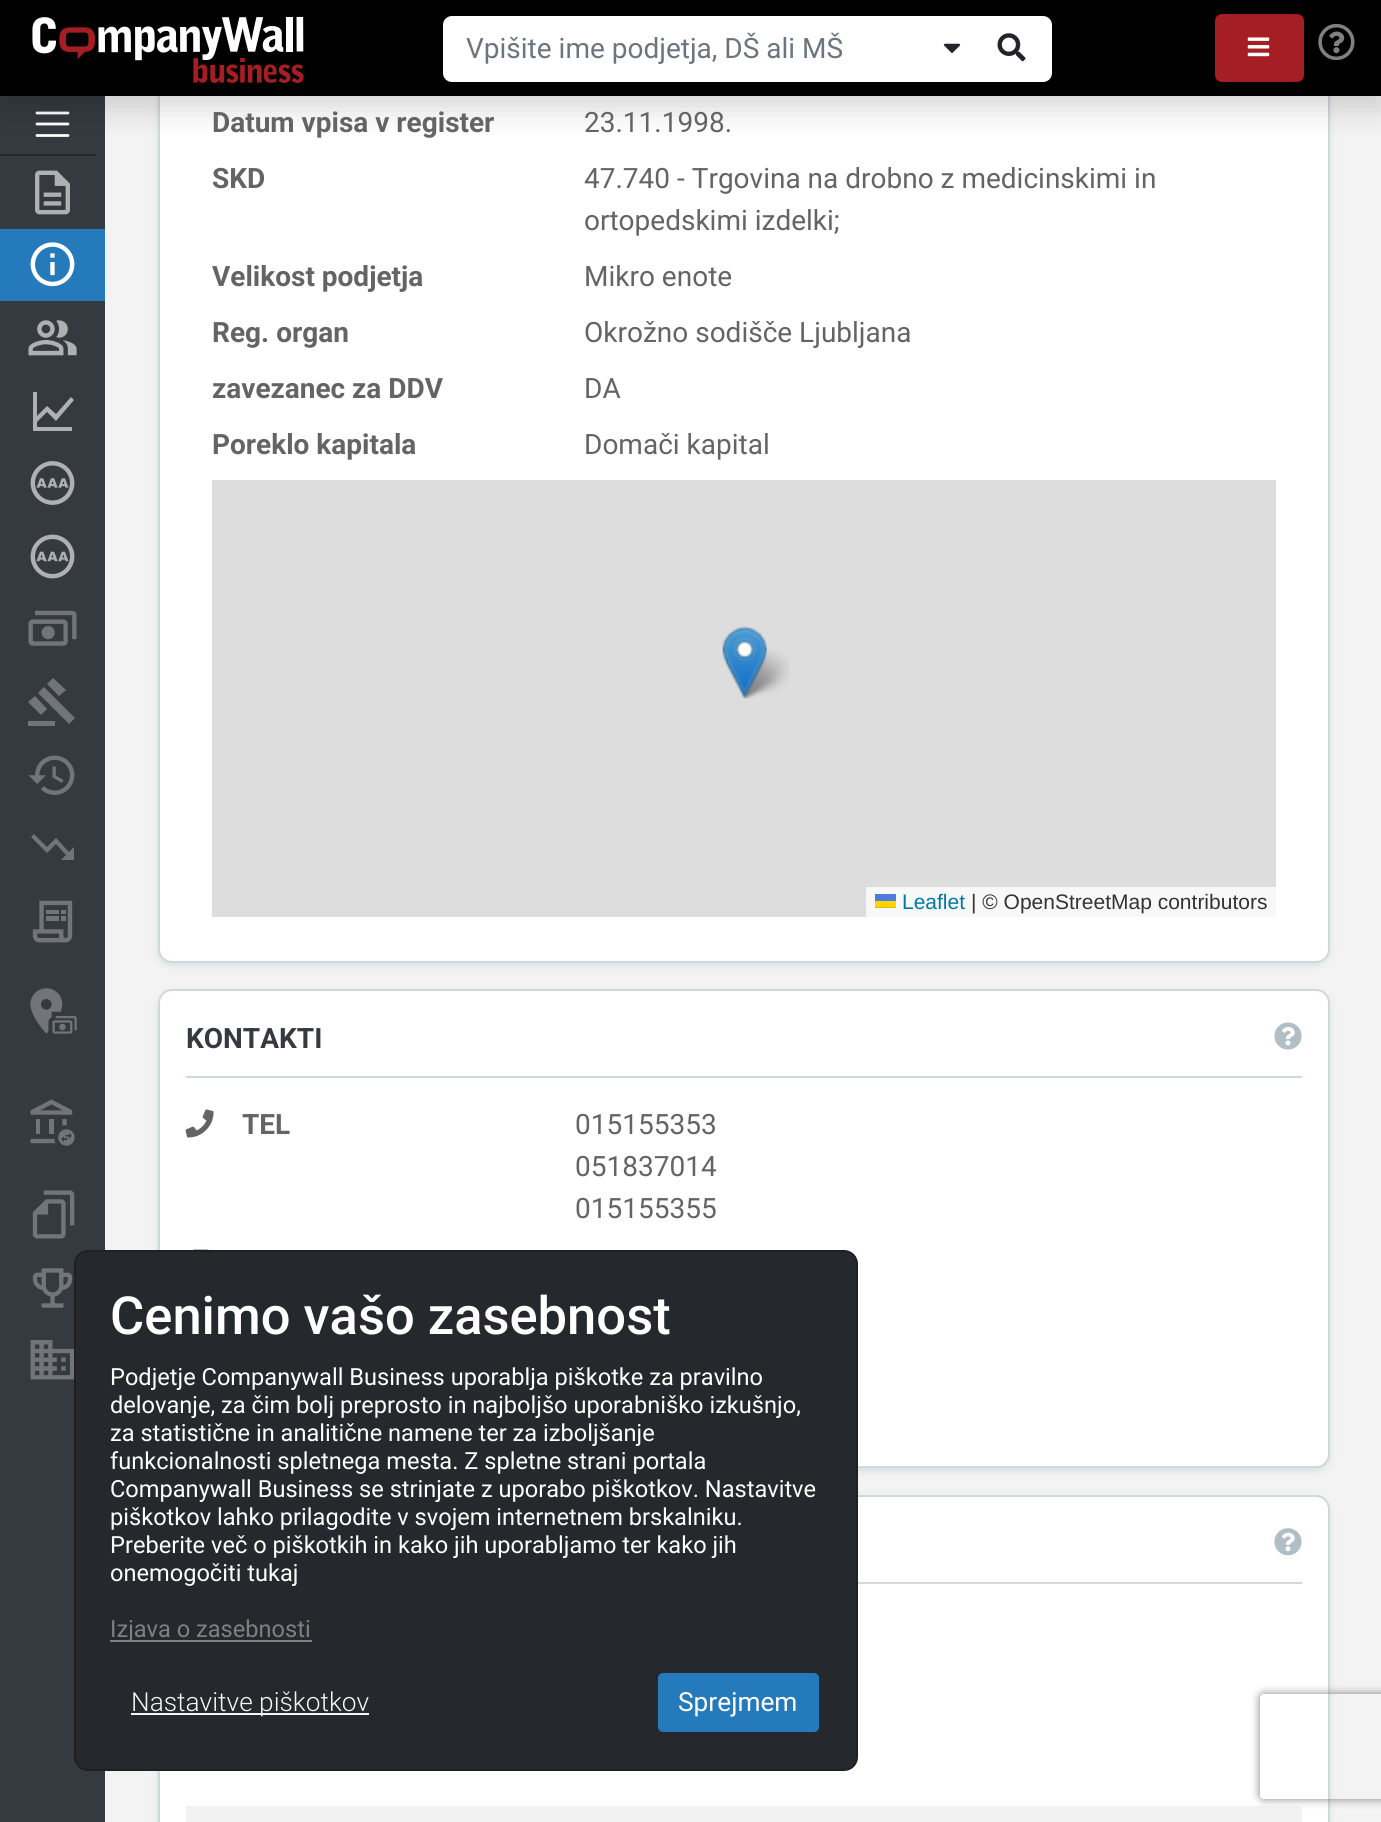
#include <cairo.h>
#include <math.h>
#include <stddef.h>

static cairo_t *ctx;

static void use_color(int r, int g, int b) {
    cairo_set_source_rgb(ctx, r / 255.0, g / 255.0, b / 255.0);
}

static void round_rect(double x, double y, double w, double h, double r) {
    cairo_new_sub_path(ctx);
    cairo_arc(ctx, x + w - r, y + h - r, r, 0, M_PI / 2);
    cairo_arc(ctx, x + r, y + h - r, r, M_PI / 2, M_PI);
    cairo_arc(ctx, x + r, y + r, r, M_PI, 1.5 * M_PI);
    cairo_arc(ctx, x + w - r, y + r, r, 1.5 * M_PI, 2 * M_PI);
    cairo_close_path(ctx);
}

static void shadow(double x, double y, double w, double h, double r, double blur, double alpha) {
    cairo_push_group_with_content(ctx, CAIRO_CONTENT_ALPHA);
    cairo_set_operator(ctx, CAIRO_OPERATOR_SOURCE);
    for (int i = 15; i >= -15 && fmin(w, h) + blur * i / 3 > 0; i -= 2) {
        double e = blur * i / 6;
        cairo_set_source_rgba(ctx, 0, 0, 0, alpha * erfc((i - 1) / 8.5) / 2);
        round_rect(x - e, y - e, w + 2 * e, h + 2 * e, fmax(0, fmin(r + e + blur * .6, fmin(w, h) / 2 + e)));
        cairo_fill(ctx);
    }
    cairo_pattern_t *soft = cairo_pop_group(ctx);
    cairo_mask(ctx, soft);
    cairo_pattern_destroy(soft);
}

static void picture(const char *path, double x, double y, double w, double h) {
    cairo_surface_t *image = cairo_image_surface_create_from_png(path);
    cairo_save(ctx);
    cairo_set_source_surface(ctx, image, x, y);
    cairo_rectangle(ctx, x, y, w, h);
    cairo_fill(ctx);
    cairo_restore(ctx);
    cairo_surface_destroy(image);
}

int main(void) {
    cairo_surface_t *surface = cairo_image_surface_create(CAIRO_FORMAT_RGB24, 1381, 1822);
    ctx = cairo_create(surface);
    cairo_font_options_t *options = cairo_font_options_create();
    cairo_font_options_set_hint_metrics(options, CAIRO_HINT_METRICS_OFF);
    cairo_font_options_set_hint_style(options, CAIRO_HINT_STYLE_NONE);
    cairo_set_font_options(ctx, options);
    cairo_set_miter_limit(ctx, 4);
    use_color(243, 243, 243);
    cairo_paint(ctx);
    use_color(52, 58, 64);
    cairo_rectangle(ctx, 0, 96, 105, 1726);
    cairo_fill(ctx);
    cairo_new_path(ctx);
    cairo_move_to(ctx, 37, 113);
    cairo_line_to(ctx, 68, 113);
    cairo_move_to(ctx, 37, 124);
    cairo_line_to(ctx, 68, 124);
    cairo_move_to(ctx, 37, 135.5);
    cairo_line_to(ctx, 68, 135.5);
    use_color(255, 255, 255);
    cairo_set_line_width(ctx, 2.8);
    cairo_set_line_cap(ctx, CAIRO_LINE_CAP_ROUND);
    cairo_stroke(ctx);
    use_color(207, 216, 220);
    shadow(159, -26, 1169, 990, 12, 4.5, 1);
    use_color(255, 255, 255);
    round_rect(159, -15, 1170, 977, 13);
    cairo_fill_preserve(ctx);
    use_color(207, 216, 220);
    cairo_set_line_width(ctx, 2);
    cairo_set_line_cap(ctx, CAIRO_LINE_CAP_BUTT);
    cairo_stroke(ctx);
    use_color(0, 0, 0);
    shadow(0, 14, 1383, 96, 0, 14, 0.15);
    use_color(0, 0, 0);
    cairo_rectangle(ctx, 0, 0, 1381, 96);
    cairo_fill(ctx);
    picture("img1.png", 32, 16, 272, 67);
    use_color(255, 255, 255);
    cairo_new_path(ctx);
    cairo_move_to(ctx, 452, 17);
    cairo_line_to(ctx, 932, 17);
    cairo_line_to(ctx, 932, 81);
    cairo_line_to(ctx, 452, 81);
    cairo_curve_to(ctx, 447.5, 81, 444, 77.5, 444, 73);
    cairo_line_to(ctx, 444, 25);
    cairo_curve_to(ctx, 444, 20.5, 447.5, 17, 452, 17);
    cairo_close_path(ctx);
    cairo_fill_preserve(ctx);
    cairo_stroke(ctx);
    cairo_select_font_face(ctx, "Roboto", CAIRO_FONT_SLANT_NORMAL, CAIRO_FONT_WEIGHT_NORMAL);
    cairo_set_font_size(ctx, 28);
    use_color(108, 117, 125);
    cairo_move_to(ctx, 466, 58);
    cairo_show_text(ctx, "Vpišite ime podjetja, DŠ ali MŠ");
    use_color(255, 255, 255);
    cairo_rectangle(ctx, 933, 16, 38, 66);
    cairo_fill(ctx);
    picture("img2.png", 943, 43, 18, 10);
    cairo_new_path(ctx);
    cairo_move_to(ctx, 972, 17);
    cairo_line_to(ctx, 1043, 17);
    cairo_curve_to(ctx, 1047.5, 17, 1051, 20.5, 1051, 25);
    cairo_line_to(ctx, 1051, 73);
    cairo_curve_to(ctx, 1051, 77.5, 1047.5, 81, 1043, 81);
    cairo_line_to(ctx, 972, 81);
    cairo_close_path(ctx);
    cairo_fill_preserve(ctx);
    cairo_stroke(ctx);
    picture("img3.png", 997, 33, 29, 29);
    use_color(165, 30, 36);
    round_rect(1216, 15, 87, 66, 6);
    cairo_fill_preserve(ctx);
    cairo_stroke(ctx);
    picture("img4.png", 1247, 37, 23, 20);
    picture("img5.png", 1318, 23, 37, 38);
    use_color(37, 40, 44);
    cairo_rectangle(ctx, 0, 154, 96, 2);
    cairo_fill(ctx);
    picture("img6.png", 35, 170, 35, 45);
    use_color(36, 122, 187);
    cairo_rectangle(ctx, 0, 229, 105, 72);
    cairo_fill(ctx);
    picture("img7.png", 30, 242, 45, 45);
    picture("img8.png", 28, 320, 49, 36);
    use_color(174, 176, 179);
    cairo_new_path(ctx);
    cairo_move_to(ctx, 37, 422);
    cairo_line_to(ctx, 47, 412);
    cairo_line_to(ctx, 56, 421);
    cairo_line_to(ctx, 74, 400);
    cairo_line_to(ctx, 71, 397);
    cairo_line_to(ctx, 56, 414);
    cairo_line_to(ctx, 47, 406);
    cairo_line_to(ctx, 37, 416);
    cairo_line_to(ctx, 37, 392);
    cairo_line_to(ctx, 33, 392);
    cairo_line_to(ctx, 33, 431);
    cairo_line_to(ctx, 72, 431);
    cairo_line_to(ctx, 72, 427);
    cairo_line_to(ctx, 37, 427);
    cairo_close_path(ctx);
    cairo_fill(ctx);
    picture("img9.png", 30, 461, 45, 44);
    picture("img10.png", 30, 534, 45, 45);
    picture("img11.png", 28, 610, 49, 36);
    use_color(113, 117, 121);
    cairo_new_path(ctx);
    cairo_move_to(ctx, 28, 721);
    cairo_line_to(ctx, 55, 721);
    cairo_line_to(ctx, 55, 726);
    cairo_line_to(ctx, 28, 726);
    cairo_close_path(ctx);
    cairo_move_to(ctx, 38, 693);
    cairo_line_to(ctx, 44, 687);
    cairo_line_to(ctx, 75, 718);
    cairo_line_to(ctx, 69, 724);
    cairo_close_path(ctx);
    cairo_move_to(ctx, 53, 678);
    cairo_line_to(ctx, 66, 690);
    cairo_line_to(ctx, 59, 696);
    cairo_line_to(ctx, 47, 684);
    cairo_close_path(ctx);
    cairo_move_to(ctx, 35, 696);
    cairo_line_to(ctx, 47, 709);
    cairo_line_to(ctx, 41, 715);
    cairo_line_to(ctx, 28, 702);
    cairo_close_path(ctx);
    cairo_fill(ctx);
    picture("img12.png", 28, 755, 47, 40);
    cairo_new_path(ctx);
    cairo_move_to(ctx, 61, 860);
    cairo_line_to(ctx, 66, 855);
    cairo_line_to(ctx, 56, 844);
    cairo_line_to(ctx, 47, 853);
    cairo_line_to(ctx, 31, 837);
    cairo_line_to(ctx, 34, 834);
    cairo_line_to(ctx, 47, 847);
    cairo_line_to(ctx, 56, 838);
    cairo_line_to(ctx, 69, 852);
    cairo_line_to(ctx, 74, 847);
    cairo_line_to(ctx, 74, 860);
    cairo_close_path(ctx);
    cairo_fill(ctx);
    picture("img13.png", 32, 900, 41, 43);
    picture("img14.png", 30, 988, 47, 46);
    picture("img15.png", 30, 1099, 45, 47);
    picture("img16.png", 32, 1190, 43, 49);
    picture("img17.png", 32, 1268, 41, 40);
    picture("img18.png", 30, 1340, 44, 40);
    cairo_select_font_face(ctx, "Roboto", CAIRO_FONT_SLANT_NORMAL, CAIRO_FONT_WEIGHT_BOLD);
    use_color(100, 100, 100);
    cairo_move_to(ctx, 212, 132);
    cairo_show_text(ctx, "Datum vpisa v register");
    cairo_select_font_face(ctx, "Roboto", CAIRO_FONT_SLANT_NORMAL, CAIRO_FONT_WEIGHT_NORMAL);
    cairo_move_to(ctx, 584, 132);
    cairo_show_text(ctx, "23.11.1998.");
    cairo_select_font_face(ctx, "Roboto", CAIRO_FONT_SLANT_NORMAL, CAIRO_FONT_WEIGHT_BOLD);
    cairo_move_to(ctx, 212, 188);
    cairo_show_text(ctx, "SKD");
    cairo_select_font_face(ctx, "Roboto", CAIRO_FONT_SLANT_NORMAL, CAIRO_FONT_WEIGHT_NORMAL);
    cairo_move_to(ctx, 584, 188);
    cairo_show_text(ctx, "47.740 - Trgovina na drobno z medicinskimi in");
    cairo_move_to(ctx, 584, 230);
    cairo_show_text(ctx, "ortopedskimi izdelki;");
    cairo_select_font_face(ctx, "Roboto", CAIRO_FONT_SLANT_NORMAL, CAIRO_FONT_WEIGHT_BOLD);
    cairo_move_to(ctx, 212, 286);
    cairo_show_text(ctx, "Velikost podjetja");
    cairo_select_font_face(ctx, "Roboto", CAIRO_FONT_SLANT_NORMAL, CAIRO_FONT_WEIGHT_NORMAL);
    cairo_move_to(ctx, 584, 286);
    cairo_show_text(ctx, "Mikro enote");
    cairo_select_font_face(ctx, "Roboto", CAIRO_FONT_SLANT_NORMAL, CAIRO_FONT_WEIGHT_BOLD);
    cairo_move_to(ctx, 212, 342);
    cairo_show_text(ctx, "Reg. organ");
    cairo_select_font_face(ctx, "Roboto", CAIRO_FONT_SLANT_NORMAL, CAIRO_FONT_WEIGHT_NORMAL);
    cairo_move_to(ctx, 584, 342);
    cairo_show_text(ctx, "Okrožno sodišče Ljubljana");
    cairo_select_font_face(ctx, "Roboto", CAIRO_FONT_SLANT_NORMAL, CAIRO_FONT_WEIGHT_BOLD);
    cairo_move_to(ctx, 212, 398);
    cairo_show_text(ctx, "zavezanec za DDV");
    cairo_select_font_face(ctx, "Roboto", CAIRO_FONT_SLANT_NORMAL, CAIRO_FONT_WEIGHT_NORMAL);
    cairo_move_to(ctx, 584, 398);
    cairo_show_text(ctx, "DA");
    cairo_select_font_face(ctx, "Roboto", CAIRO_FONT_SLANT_NORMAL, CAIRO_FONT_WEIGHT_BOLD);
    cairo_move_to(ctx, 212, 454);
    cairo_show_text(ctx, "Poreklo kapitala");
    cairo_select_font_face(ctx, "Roboto", CAIRO_FONT_SLANT_NORMAL, CAIRO_FONT_WEIGHT_NORMAL);
    cairo_move_to(ctx, 584, 454);
    cairo_show_text(ctx, "Domači kapital");
    use_color(221, 221, 221);
    cairo_rectangle(ctx, 212, 480, 1064, 437);
    cairo_fill(ctx);
    picture("img20.png", 738, 649, 52, 50);
    picture("img19.png", 722, 626, 45, 73);
    use_color(248, 248, 248);
    cairo_rectangle(ctx, 866, 887, 410, 30);
    cairo_fill(ctx);
    cairo_select_font_face(ctx, "Liberation Sans", CAIRO_FONT_SLANT_NORMAL, CAIRO_FONT_WEIGHT_NORMAL);
    cairo_set_font_size(ctx, 21);
    use_color(0, 120, 168);
    cairo_move_to(ctx, 902, 909);
    cairo_show_text(ctx, "Leaflet");
    use_color(76, 123, 225);
    cairo_rectangle(ctx, 875, 894, 21, 7);
    cairo_fill(ctx);
    use_color(255, 213, 0);
    cairo_rectangle(ctx, 875, 901, 21, 6);
    cairo_fill(ctx);
    use_color(224, 188, 0);
    cairo_rectangle(ctx, 875, 907, 21, 1);
    cairo_fill(ctx);
    use_color(51, 51, 51);
    cairo_move_to(ctx, 971, 909);
    cairo_show_text(ctx, "| © OpenStreetMap contributors");
    use_color(207, 216, 220);
    shadow(159, 994, 1169, 476, 12, 4.5, 1);
    use_color(255, 255, 255);
    round_rect(159, 990, 1170, 477, 13);
    cairo_fill_preserve(ctx);
    use_color(207, 216, 220);
    cairo_stroke(ctx);
    cairo_rectangle(ctx, 186, 1076, 1116, 2);
    cairo_fill(ctx);
    cairo_select_font_face(ctx, "Roboto", CAIRO_FONT_SLANT_NORMAL, CAIRO_FONT_WEIGHT_BOLD);
    cairo_set_font_size(ctx, 28);
    use_color(52, 58, 64);
    cairo_move_to(ctx, 186, 1048);
    cairo_show_text(ctx, "KONTAKTI");
    picture("img21.png", 1274, 1022, 28, 28);
    picture("img22.png", 185, 1109, 29, 29);
    use_color(100, 100, 100);
    cairo_move_to(ctx, 242, 1134);
    cairo_show_text(ctx, "TEL");
    cairo_select_font_face(ctx, "Roboto", CAIRO_FONT_SLANT_NORMAL, CAIRO_FONT_WEIGHT_NORMAL);
    cairo_move_to(ctx, 575, 1134);
    cairo_show_text(ctx, "015155353");
    cairo_move_to(ctx, 575, 1176);
    cairo_show_text(ctx, "051837014");
    cairo_move_to(ctx, 575, 1218);
    cairo_show_text(ctx, "015155355");
    picture("img23.png", 193, 1249, 16, 1);
    use_color(207, 216, 220);
    shadow(159, 1500, 1169, 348, 12, 4.5, 1);
    use_color(255, 255, 255);
    round_rect(159, 1496, 1170, 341, 13);
    cairo_fill_preserve(ctx);
    use_color(207, 216, 220);
    cairo_stroke(ctx);
    cairo_rectangle(ctx, 858, 1582, 444, 2);
    cairo_fill(ctx);
    picture("img24.png", 1274, 1528, 28, 28);
    use_color(242, 242, 242);
    cairo_rectangle(ctx, 186, 1806, 1116, 16);
    cairo_fill(ctx);
    use_color(37, 40, 44);
    round_rect(74, 1250, 784, 521, 14);
    cairo_fill(ctx);
    round_rect(75, 1251, 782, 519, 13);
    cairo_set_source_rgba(ctx, 0, 0, 0, 0.2);
    cairo_stroke(ctx);
    cairo_select_font_face(ctx, "Roboto Medium", CAIRO_FONT_SLANT_NORMAL, CAIRO_FONT_WEIGHT_NORMAL);
    cairo_set_font_size(ctx, 52.5);
    use_color(255, 255, 255);
    cairo_move_to(ctx, 110, 1334);
    cairo_show_text(ctx, "Cenimo vašo zasebnost");
    cairo_select_font_face(ctx, "Roboto", CAIRO_FONT_SLANT_NORMAL, CAIRO_FONT_WEIGHT_NORMAL);
    cairo_set_font_size(ctx, 23.6);
    cairo_move_to(ctx, 110, 1385);
    cairo_show_text(ctx, "Podjetje Companywall Business uporablja piškotke za pravilno");
    cairo_move_to(ctx, 110, 1413);
    cairo_show_text(ctx, "delovanje, za čim bolj preprosto in najboljšo uporabniško izkušnjo,");
    cairo_move_to(ctx, 110, 1441);
    cairo_show_text(ctx, "za statistične in analitične namene ter za izboljšanje");
    cairo_move_to(ctx, 110, 1469);
    cairo_show_text(ctx, "funkcionalnosti spletnega mesta. Z spletne strani portala");
    cairo_move_to(ctx, 110, 1497);
    cairo_show_text(ctx, "Companywall Business se strinjate z uporabo piškotkov. Nastavitve");
    cairo_move_to(ctx, 110, 1525);
    cairo_show_text(ctx, "piškotkov lahko prilagodite v svojem internetnem brskalniku.");
    cairo_move_to(ctx, 110, 1553);
    cairo_show_text(ctx, "Preberite več o piškotkih in kako jih uporabljamo ter kako jih");
    cairo_move_to(ctx, 110, 1581);
    cairo_show_text(ctx, "onemogočiti tukaj");
    use_color(128, 128, 128);
    cairo_rectangle(ctx, 110, 1640, 202, 2);
    cairo_fill(ctx);
    cairo_move_to(ctx, 110, 1637);
    cairo_show_text(ctx, "Izjava o zasebnosti");
    use_color(245, 245, 245);
    cairo_rectangle(ctx, 131, 1713, 238, 2);
    cairo_fill(ctx);
    cairo_select_font_face(ctx, "Roboto Light", CAIRO_FONT_SLANT_NORMAL, CAIRO_FONT_WEIGHT_NORMAL);
    cairo_set_font_size(ctx, 26.25);
    cairo_move_to(ctx, 131, 1711);
    cairo_show_text(ctx, "Nastavitve piškotkov");
    use_color(37, 122, 187);
    round_rect(657, 1672, 163, 61, 6);
    cairo_fill_preserve(ctx);
    use_color(37, 40, 44);
    cairo_stroke(ctx);
    cairo_select_font_face(ctx, "Roboto", CAIRO_FONT_SLANT_NORMAL, CAIRO_FONT_WEIGHT_NORMAL);
    use_color(255, 255, 255);
    cairo_move_to(ctx, 678, 1711);
    cairo_show_text(ctx, "Sprejmem");
    cairo_save(ctx);
    cairo_set_fill_rule(ctx, CAIRO_FILL_RULE_EVEN_ODD);
    cairo_new_path(ctx);
    cairo_move_to(ctx, 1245, 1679);
    cairo_line_to(ctx, 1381, 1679);
    cairo_line_to(ctx, 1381, 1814);
    cairo_line_to(ctx, 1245, 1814);
    cairo_close_path(ctx);
    cairo_move_to(ctx, 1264, 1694);
    cairo_line_to(ctx, 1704, 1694);
    cairo_curve_to(ctx, 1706, 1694, 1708, 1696, 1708, 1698);
    cairo_line_to(ctx, 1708, 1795);
    cairo_curve_to(ctx, 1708, 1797, 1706, 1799, 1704, 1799);
    cairo_line_to(ctx, 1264, 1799);
    cairo_curve_to(ctx, 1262, 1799, 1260, 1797, 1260, 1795);
    cairo_line_to(ctx, 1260, 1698);
    cairo_curve_to(ctx, 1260, 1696, 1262, 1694, 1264, 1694);
    cairo_close_path(ctx);
    cairo_clip(ctx);
    use_color(128, 128, 128);
    shadow(1260, 1694, 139, 105, 4, 4.5, 1);
    cairo_restore(ctx);
    cairo_surface_write_to_png(surface, "result.png");
    cairo_font_options_destroy(options);
    cairo_destroy(ctx);
    cairo_surface_destroy(surface);
    return 0;
}
